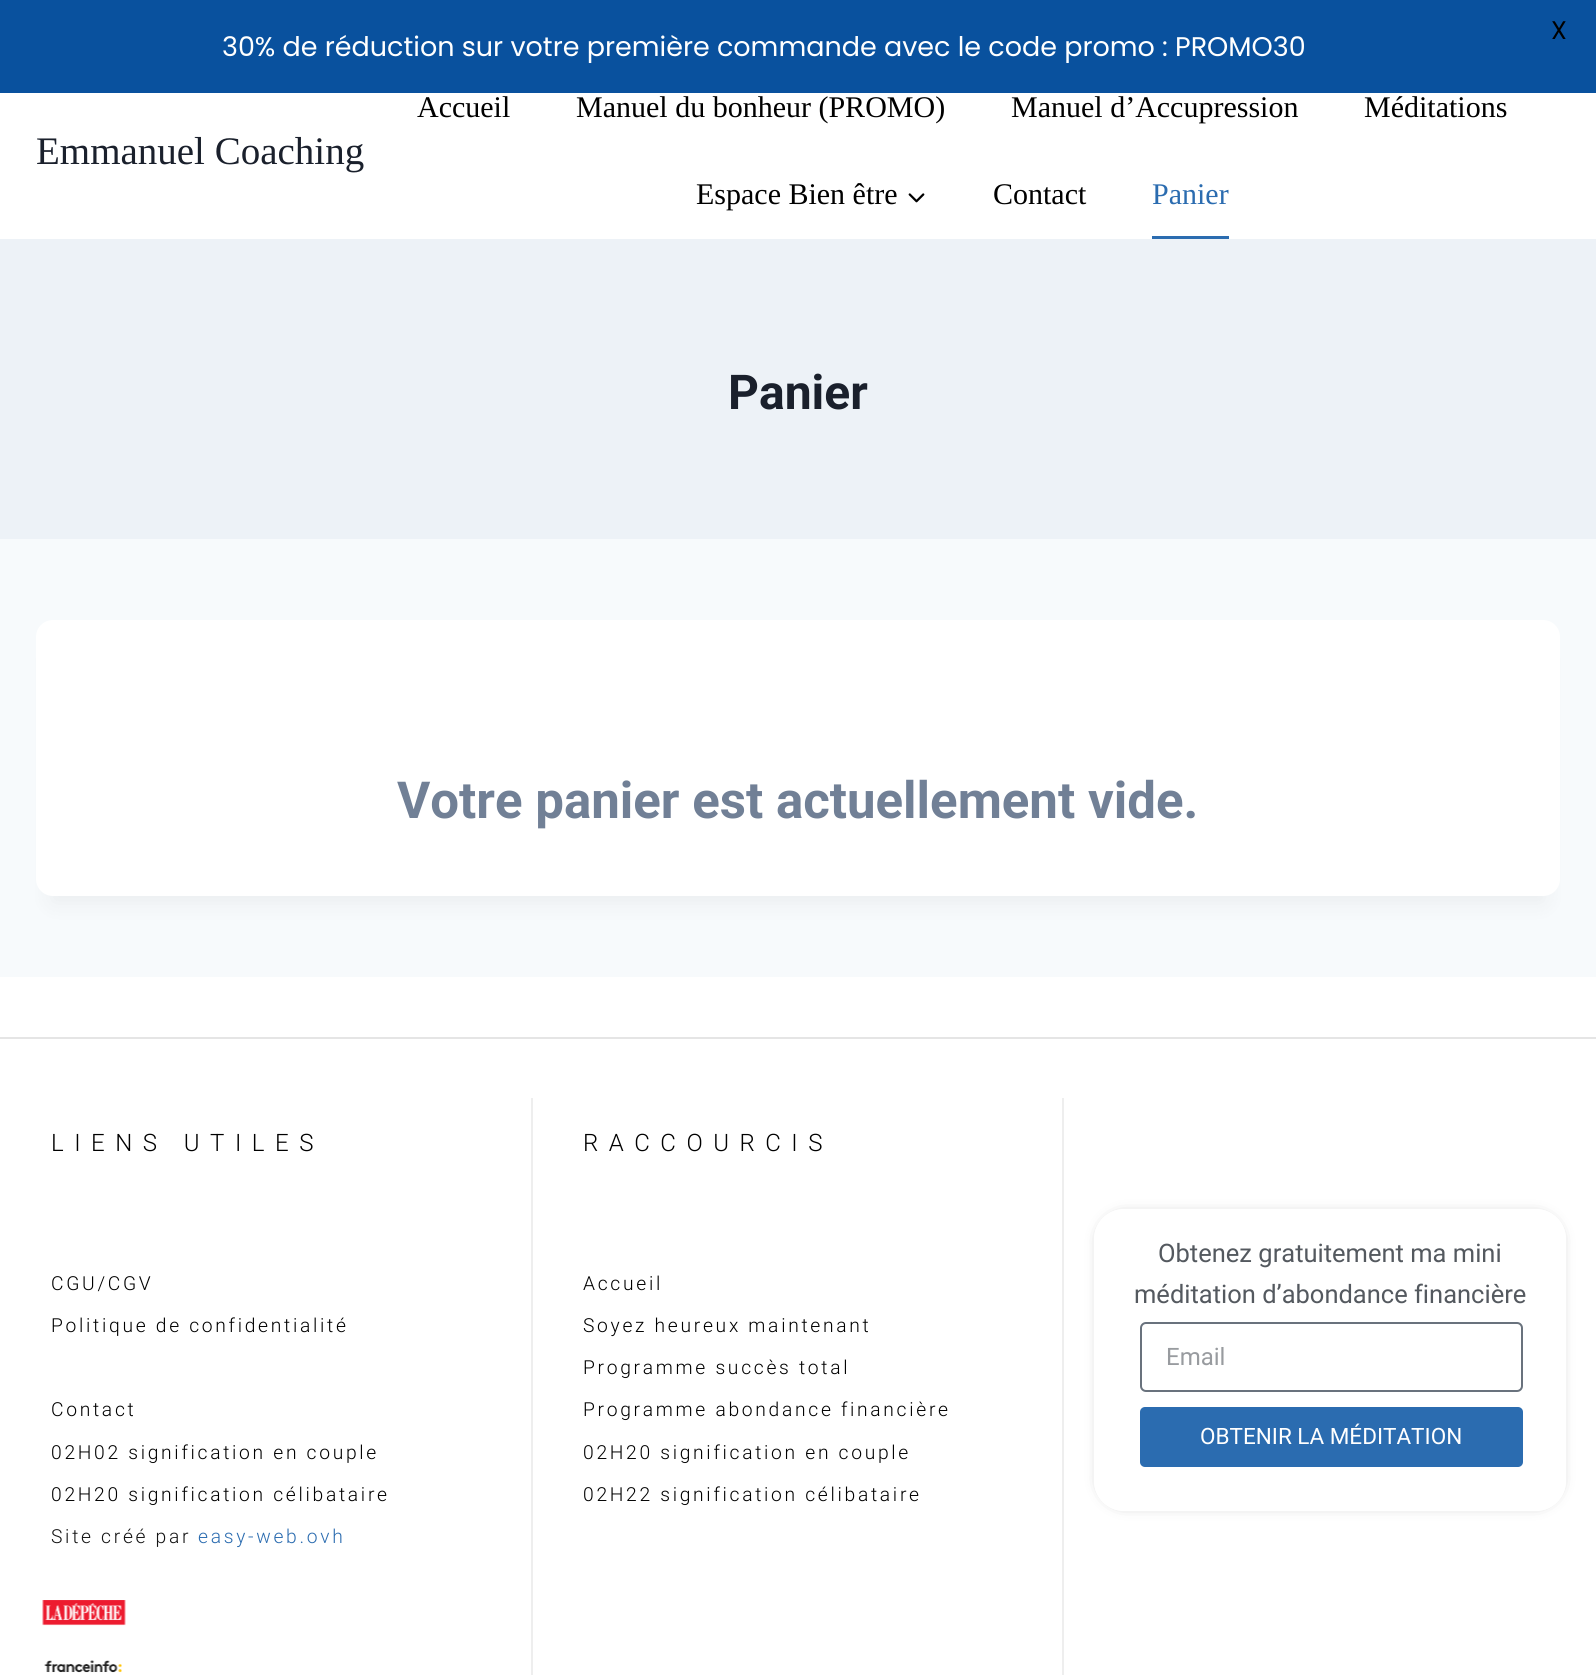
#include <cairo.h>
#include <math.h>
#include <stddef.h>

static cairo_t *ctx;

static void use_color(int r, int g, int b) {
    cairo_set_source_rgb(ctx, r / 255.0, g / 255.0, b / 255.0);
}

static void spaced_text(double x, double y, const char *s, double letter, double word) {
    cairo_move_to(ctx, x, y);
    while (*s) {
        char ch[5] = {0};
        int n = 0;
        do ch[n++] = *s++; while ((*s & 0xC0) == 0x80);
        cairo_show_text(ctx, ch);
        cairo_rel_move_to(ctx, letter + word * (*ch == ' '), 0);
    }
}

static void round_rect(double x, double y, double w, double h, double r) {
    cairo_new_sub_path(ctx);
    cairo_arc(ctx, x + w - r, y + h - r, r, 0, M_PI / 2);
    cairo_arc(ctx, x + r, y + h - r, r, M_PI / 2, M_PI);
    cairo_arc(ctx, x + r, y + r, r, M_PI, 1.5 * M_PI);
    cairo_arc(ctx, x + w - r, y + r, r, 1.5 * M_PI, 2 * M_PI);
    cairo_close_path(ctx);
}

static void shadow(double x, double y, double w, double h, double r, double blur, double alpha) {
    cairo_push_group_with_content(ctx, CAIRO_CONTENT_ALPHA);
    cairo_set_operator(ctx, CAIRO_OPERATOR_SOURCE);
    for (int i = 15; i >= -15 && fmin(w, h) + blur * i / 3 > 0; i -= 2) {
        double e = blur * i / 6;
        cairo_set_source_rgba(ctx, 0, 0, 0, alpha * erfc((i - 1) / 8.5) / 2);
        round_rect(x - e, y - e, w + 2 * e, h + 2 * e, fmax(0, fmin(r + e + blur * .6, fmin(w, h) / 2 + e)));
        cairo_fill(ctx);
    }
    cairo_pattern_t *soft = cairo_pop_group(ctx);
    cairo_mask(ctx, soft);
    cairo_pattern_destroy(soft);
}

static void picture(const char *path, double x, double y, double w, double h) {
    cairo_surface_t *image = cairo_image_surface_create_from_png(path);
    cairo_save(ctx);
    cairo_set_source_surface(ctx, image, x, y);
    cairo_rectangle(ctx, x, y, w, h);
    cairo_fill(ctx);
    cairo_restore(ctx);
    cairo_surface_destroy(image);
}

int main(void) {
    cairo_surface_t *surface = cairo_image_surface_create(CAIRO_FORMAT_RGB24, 1596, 1675);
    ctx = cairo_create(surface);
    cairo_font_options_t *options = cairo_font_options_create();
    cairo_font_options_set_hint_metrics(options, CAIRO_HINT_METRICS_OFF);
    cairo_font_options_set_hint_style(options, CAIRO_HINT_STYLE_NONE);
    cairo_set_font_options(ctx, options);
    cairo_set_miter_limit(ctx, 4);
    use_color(247, 250, 252);
    cairo_paint(ctx);
    use_color(9, 81, 158);
    cairo_rectangle(ctx, 0, 0, 1596, 93);
    cairo_fill(ctx);
    cairo_select_font_face(ctx, "Poppins", CAIRO_FONT_SLANT_NORMAL, CAIRO_FONT_WEIGHT_NORMAL);
    cairo_set_font_size(ctx, 25.5);
    use_color(0, 0, 0);
    cairo_move_to(ctx, 1551, 39);
    cairo_show_text(ctx, "X");
    cairo_set_font_size(ctx, 27);
    use_color(255, 255, 255);
    cairo_move_to(ctx, 222, 56);
    cairo_show_text(ctx, "30% de réduction sur votre première commande avec le code promo : PROMO30");
    cairo_rectangle(ctx, 0, 93, 1596, 146);
    cairo_fill(ctx);
    cairo_select_font_face(ctx, "Liberation Serif", CAIRO_FONT_SLANT_NORMAL, CAIRO_FONT_WEIGHT_NORMAL);
    cairo_set_font_size(ctx, 39);
    use_color(26, 32, 44);
    cairo_move_to(ctx, 36, 164);
    cairo_show_text(ctx, "Emmanuel Coaching");
    cairo_set_font_size(ctx, 30);
    use_color(0, 0, 0);
    cairo_move_to(ctx, 417, 117);
    cairo_show_text(ctx, "Accueil");
    cairo_move_to(ctx, 576, 117);
    cairo_show_text(ctx, "Manuel du bonheur (PROMO)");
    cairo_move_to(ctx, 1011, 117);
    cairo_show_text(ctx, "Manuel d’Accupression");
    cairo_move_to(ctx, 1364, 117);
    cairo_show_text(ctx, "Méditations");
    cairo_move_to(ctx, 696, 204);
    cairo_show_text(ctx, "Espace Bien être");
    picture("img1.png", 908, 193, 17, 10);
    cairo_move_to(ctx, 993, 204);
    cairo_show_text(ctx, "Contact");
    use_color(43, 108, 176);
    cairo_move_to(ctx, 1152, 204);
    cairo_show_text(ctx, "Panier");
    cairo_rectangle(ctx, 1152, 236, 77, 3);
    cairo_fill(ctx);
    use_color(237, 242, 247);
    cairo_rectangle(ctx, 0, 239, 1596, 300);
    cairo_fill(ctx);
    cairo_select_font_face(ctx, "Roboto", CAIRO_FONT_SLANT_NORMAL, CAIRO_FONT_WEIGHT_BOLD);
    cairo_set_font_size(ctx, 48);
    use_color(26, 32, 44);
    cairo_move_to(ctx, 728, 409);
    cairo_show_text(ctx, "Panier");
    use_color(0, 0, 0);
    shadow(51, 657, 1494, 246, 1.5, 11, 0.05);
    use_color(255, 255, 255);
    round_rect(36, 620, 1524, 276, 17);
    cairo_fill(ctx);
    cairo_set_font_size(ctx, 51);
    use_color(113, 128, 150);
    cairo_move_to(ctx, 397, 818);
    cairo_show_text(ctx, "Votre panier est actuellement vide.");
    use_color(255, 255, 255);
    cairo_rectangle(ctx, 0, 977, 1596, 698);
    cairo_fill(ctx);
    use_color(229, 229, 229);
    cairo_rectangle(ctx, 0, 1037, 1596, 2);
    cairo_fill(ctx);
    use_color(238, 238, 238);
    cairo_rectangle(ctx, 531, 1098, 2, 577);
    cairo_fill(ctx);
    cairo_select_font_face(ctx, "Roboto Light", CAIRO_FONT_SLANT_NORMAL, CAIRO_FONT_WEIGHT_NORMAL);
    cairo_set_font_size(ctx, 24);
    use_color(0, 0, 0);
    spaced_text(51, 1151, "LIENS UTILES", 10.5, 0);
    cairo_set_font_size(ctx, 19.25);
    spaced_text(51, 1290, "CGU/CGV", 2.7, 0);
    spaced_text(51, 1332, "Politique de confidentialité", 2.7, 0);
    spaced_text(51, 1416, "Contact", 2.7, 0);
    spaced_text(51, 1459, "02H02 signification en couple", 2.7, 0);
    spaced_text(51, 1501, "02H20 signification célibataire", 2.7, 0);
    use_color(20, 20, 20);
    spaced_text(51, 1543, "Site créé par", 2.7, 0);
    use_color(43, 108, 176);
    spaced_text(198, 1543, "easy-web.ovh", 2.7, 0);
    use_color(238, 238, 238);
    cairo_rectangle(ctx, 1062, 1098, 2, 577);
    cairo_fill(ctx);
    cairo_set_font_size(ctx, 24);
    use_color(0, 0, 0);
    spaced_text(583, 1151, "RACCOURCIS", 10.5, 0);
    cairo_set_font_size(ctx, 19.25);
    spaced_text(583, 1290, "Accueil", 2.7, 0);
    spaced_text(583, 1332, "Soyez heureux maintenant", 2.7, 0);
    spaced_text(583, 1374, "Programme succès total", 2.7, 0);
    spaced_text(583, 1416, "Programme abondance financière", 2.7, 0);
    spaced_text(583, 1459, "02H20 signification en couple", 2.7, 0);
    spaced_text(583, 1501, "02H22 signification célibataire", 2.7, 0);
    picture("img2.png", 42, 1600, 84, 26);
    picture("img3.png", 44, 1660, 78, 13);
    cairo_save(ctx);
    cairo_set_fill_rule(ctx, CAIRO_FILL_RULE_EVEN_ODD);
    cairo_new_path(ctx);
    cairo_move_to(ctx, 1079, 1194);
    cairo_line_to(ctx, 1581, 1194);
    cairo_line_to(ctx, 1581, 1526);
    cairo_line_to(ctx, 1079, 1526);
    cairo_close_path(ctx);
    cairo_move_to(ctx, 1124, 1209);
    cairo_line_to(ctx, 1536, 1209);
    cairo_curve_to(ctx, 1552.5, 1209, 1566, 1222.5, 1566, 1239);
    cairo_line_to(ctx, 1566, 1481);
    cairo_curve_to(ctx, 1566, 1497.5, 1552.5, 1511, 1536, 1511);
    cairo_line_to(ctx, 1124, 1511);
    cairo_curve_to(ctx, 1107.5, 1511, 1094, 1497.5, 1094, 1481);
    cairo_line_to(ctx, 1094, 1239);
    cairo_curve_to(ctx, 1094, 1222.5, 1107.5, 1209, 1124, 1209);
    cairo_close_path(ctx);
    cairo_clip(ctx);
    use_color(0, 0, 0);
    shadow(1103, 1218, 454, 284, 21, 7.5, 0.5);
    cairo_restore(ctx);
    cairo_select_font_face(ctx, "Roboto", CAIRO_FONT_SLANT_NORMAL, CAIRO_FONT_WEIGHT_NORMAL);
    cairo_set_font_size(ctx, 25.5);
    use_color(84, 89, 95);
    cairo_move_to(ctx, 1158, 1262);
    cairo_show_text(ctx, "Obtenez gratuitement ma mini");
    cairo_move_to(ctx, 1134, 1303);
    cairo_show_text(ctx, "méditation d’abondance financière");
    round_rect(1141, 1323, 381, 68, 5);
    use_color(105, 114, 125);
    cairo_stroke(ctx);
    cairo_set_font_size(ctx, 24);
    use_color(152, 155, 159);
    cairo_move_to(ctx, 1166, 1365);
    cairo_show_text(ctx, "Email");
    use_color(43, 108, 176);
    round_rect(1140, 1407, 383, 60, 5);
    cairo_fill(ctx);
    cairo_set_font_size(ctx, 22.5);
    use_color(255, 255, 255);
    cairo_move_to(ctx, 1200, 1444);
    cairo_show_text(ctx, "OBTENIR LA MÉDITATION");
    cairo_surface_write_to_png(surface, "result.png");
    cairo_font_options_destroy(options);
    cairo_destroy(ctx);
    cairo_surface_destroy(surface);
    return 0;
}
